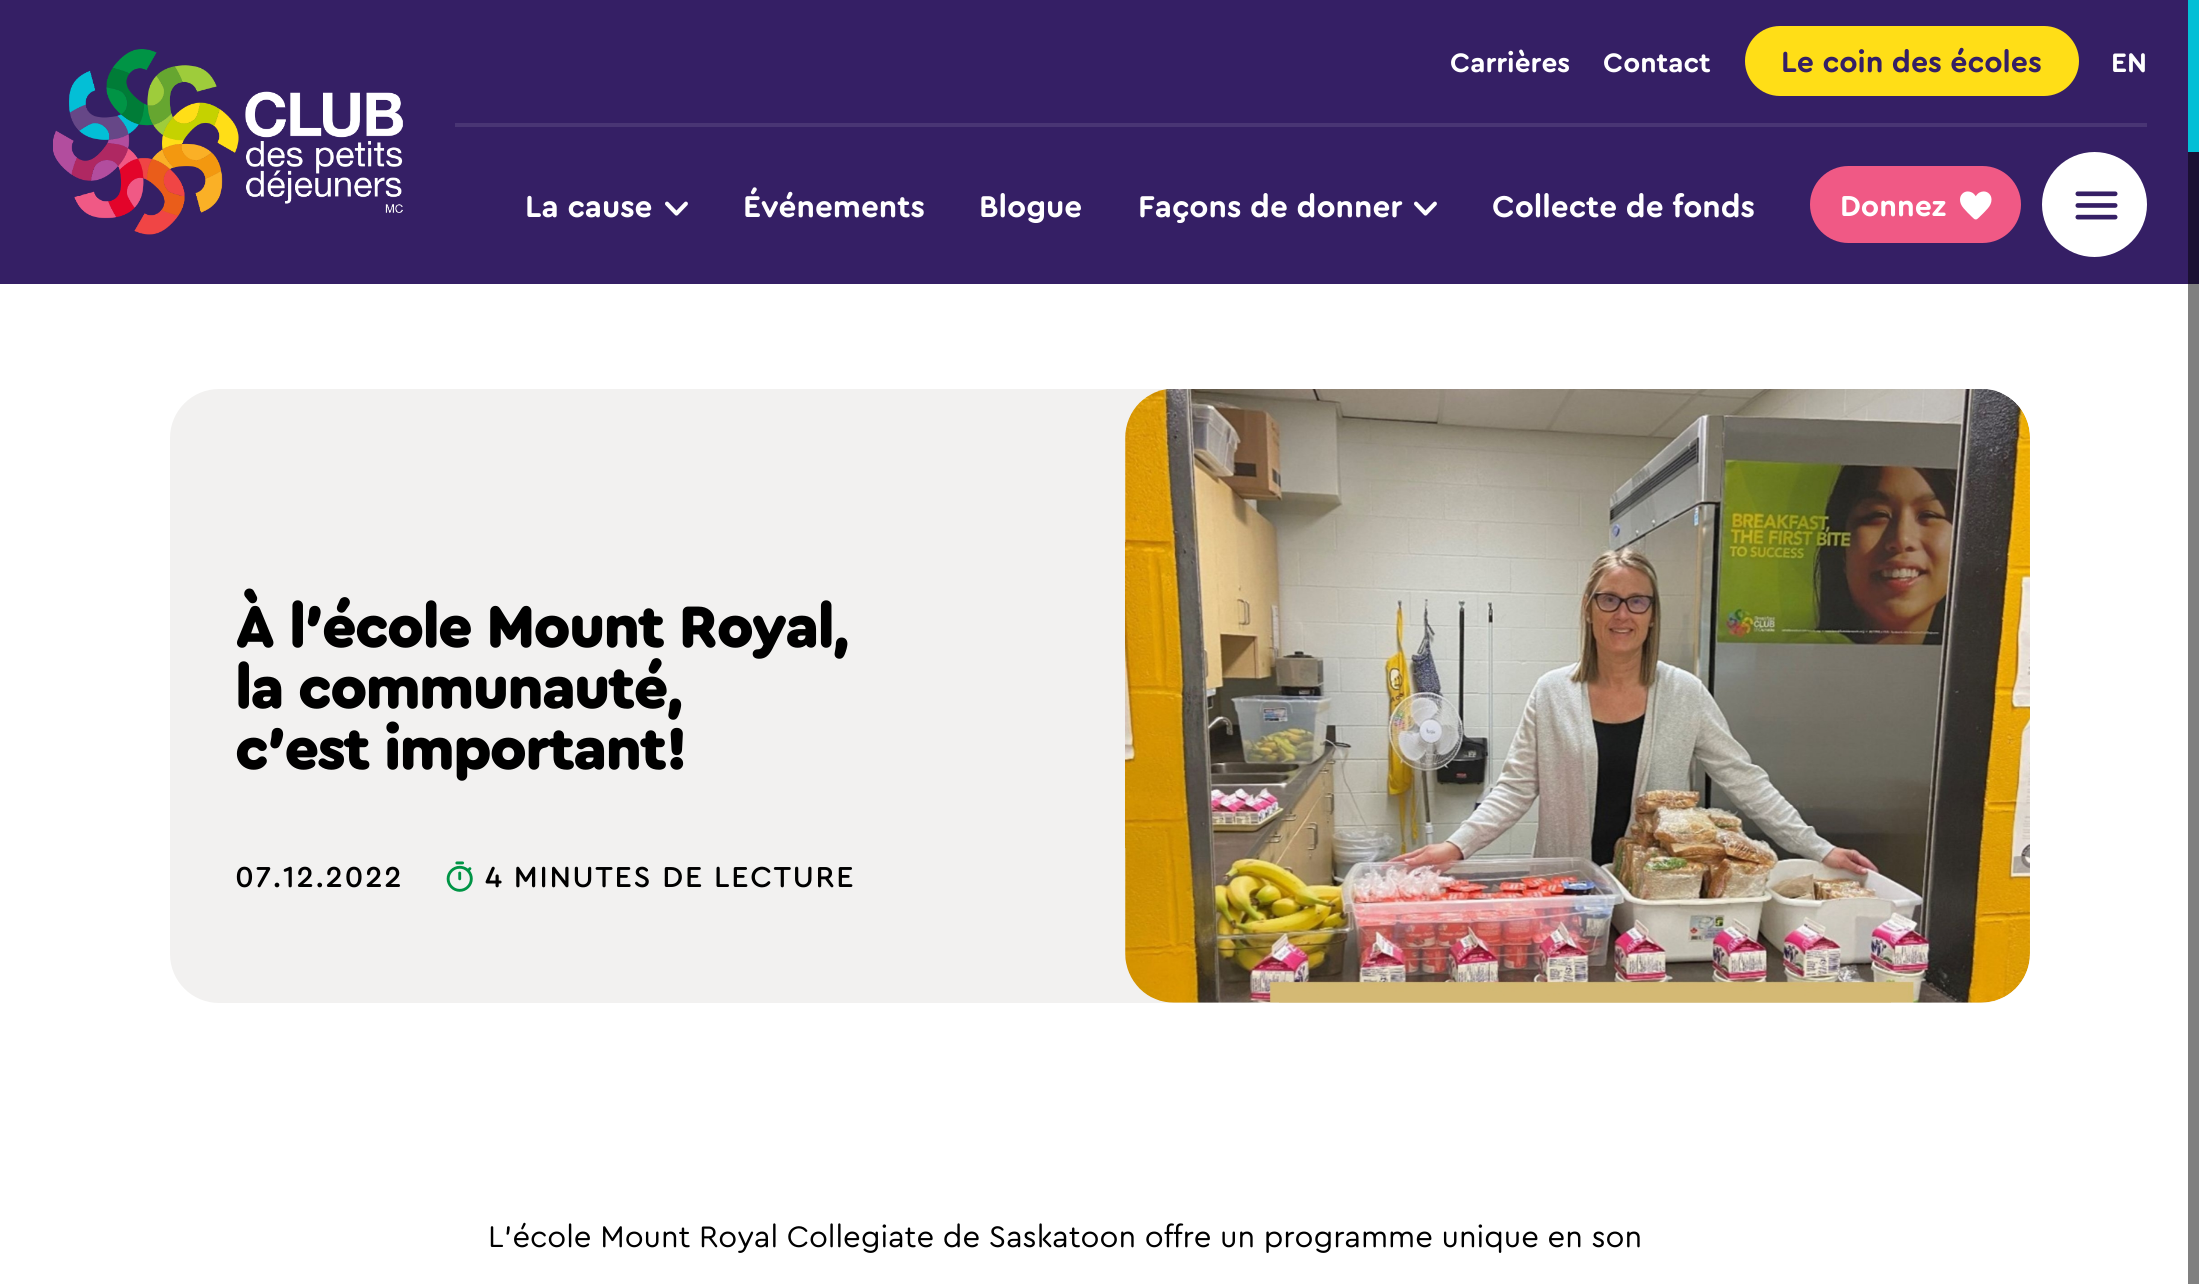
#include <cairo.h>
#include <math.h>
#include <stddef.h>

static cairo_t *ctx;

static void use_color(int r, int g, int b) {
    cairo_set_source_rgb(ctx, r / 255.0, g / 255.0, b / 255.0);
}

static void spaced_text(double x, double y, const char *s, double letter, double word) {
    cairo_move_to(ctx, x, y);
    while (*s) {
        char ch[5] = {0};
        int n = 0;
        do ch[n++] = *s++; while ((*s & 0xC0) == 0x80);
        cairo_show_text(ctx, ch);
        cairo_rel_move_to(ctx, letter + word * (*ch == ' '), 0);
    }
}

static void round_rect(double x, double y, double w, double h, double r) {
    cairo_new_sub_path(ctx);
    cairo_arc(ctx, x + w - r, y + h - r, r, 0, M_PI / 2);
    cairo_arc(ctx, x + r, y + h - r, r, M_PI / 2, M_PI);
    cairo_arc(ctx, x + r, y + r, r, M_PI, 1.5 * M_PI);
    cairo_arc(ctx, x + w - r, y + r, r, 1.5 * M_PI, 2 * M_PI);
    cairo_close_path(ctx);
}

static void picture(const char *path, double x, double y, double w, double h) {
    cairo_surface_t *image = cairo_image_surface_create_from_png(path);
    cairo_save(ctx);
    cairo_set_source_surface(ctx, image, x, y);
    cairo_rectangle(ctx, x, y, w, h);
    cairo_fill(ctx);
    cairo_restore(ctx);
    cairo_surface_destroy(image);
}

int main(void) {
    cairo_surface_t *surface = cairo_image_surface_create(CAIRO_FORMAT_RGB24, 2199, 1284);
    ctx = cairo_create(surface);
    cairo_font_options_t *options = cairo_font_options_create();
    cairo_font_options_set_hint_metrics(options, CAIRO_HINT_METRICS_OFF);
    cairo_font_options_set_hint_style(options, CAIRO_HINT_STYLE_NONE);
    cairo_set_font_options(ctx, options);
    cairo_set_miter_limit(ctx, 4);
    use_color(255, 255, 255);
    cairo_paint(ctx);
    use_color(128, 128, 128);
    cairo_rectangle(ctx, 2188, 284, 11, 1000);
    cairo_fill(ctx);
    use_color(53, 31, 101);
    cairo_rectangle(ctx, 0, 0, 2188, 284);
    cairo_fill(ctx);
    use_color(27, 16, 51);
    cairo_rectangle(ctx, 2188, 152, 11, 132);
    cairo_fill(ctx);
    picture("img1.png", 53, 49, 350, 186);
    cairo_select_font_face(ctx, "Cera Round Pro", CAIRO_FONT_SLANT_NORMAL, CAIRO_FONT_WEIGHT_BOLD);
    cairo_set_font_size(ctx, 28);
    use_color(255, 255, 255);
    cairo_move_to(ctx, 1450, 72);
    cairo_show_text(ctx, "Carrières");
    cairo_move_to(ctx, 1603, 72);
    cairo_show_text(ctx, "Contact");
    use_color(255, 222, 23);
    round_rect(1745, 26, 334, 70, 35);
    cairo_fill(ctx);
    cairo_set_font_size(ctx, 30.25);
    use_color(53, 31, 101);
    cairo_move_to(ctx, 1781, 72);
    cairo_show_text(ctx, "Le coin des écoles");
    cairo_set_font_size(ctx, 28);
    use_color(255, 255, 255);
    cairo_move_to(ctx, 2111, 72);
    cairo_show_text(ctx, "EN");
    use_color(73, 53, 116);
    cairo_rectangle(ctx, 455, 123, 1692, 4);
    cairo_fill(ctx);
    cairo_set_font_size(ctx, 31.5);
    use_color(255, 255, 255);
    cairo_move_to(ctx, 525, 217);
    cairo_show_text(ctx, "La cause");
    picture("img2.png", 665, 201, 23, 15);
    cairo_move_to(ctx, 743, 217);
    cairo_show_text(ctx, "Événements");
    cairo_move_to(ctx, 979, 217);
    cairo_show_text(ctx, "Blogue");
    cairo_move_to(ctx, 1138, 217);
    cairo_show_text(ctx, "Façons de donner");
    picture("img2.png", 1414, 201, 23, 15);
    cairo_move_to(ctx, 1492, 217);
    cairo_show_text(ctx, "Collecte de fonds");
    use_color(240, 89, 133);
    round_rect(1810, 166, 211, 77, 38.5);
    cairo_fill(ctx);
    cairo_set_font_size(ctx, 30.25);
    use_color(255, 255, 255);
    cairo_move_to(ctx, 1840, 216);
    cairo_show_text(ctx, "Donnez");
    picture("img3.png", 1960, 191, 32, 29);
    cairo_arc(ctx, 2094.5, 204.5, 52.5, 0, 2 * M_PI);
    cairo_fill(ctx);
    picture("img4.png", 2075, 191, 43, 29);
    use_color(3, 191, 214);
    cairo_rectangle(ctx, 2188, 0, 11, 152);
    cairo_fill(ctx);
    use_color(242, 241, 240);
    round_rect(170, 389, 1860, 614, 49);
    cairo_fill(ctx);
    cairo_select_font_face(ctx, "Cera Round Pro Black", CAIRO_FONT_SLANT_NORMAL, CAIRO_FONT_WEIGHT_NORMAL);
    cairo_set_font_size(ctx, 61.25);
    use_color(0, 0, 0);
    spaced_text(235, 647, "À l’école Mount Royal,", -1.8, 0);
    spaced_text(235, 708, "la communauté,", -1.8, 0);
    spaced_text(235, 769, "c’est important!", -1.8, 0);
    cairo_select_font_face(ctx, "Cera Round Pro Medium", CAIRO_FONT_SLANT_NORMAL, CAIRO_FONT_WEIGHT_NORMAL);
    cairo_set_font_size(ctx, 30.25);
    spaced_text(235, 887, "07.12.2022", 1.7, 0);
    picture("img5.png", 446, 861, 27, 31);
    spaced_text(485, 887, "4 MINUTES DE LECTURE", 1.7, 0);
    picture("img6.png", 1125, 389, 905, 614);
    cairo_select_font_face(ctx, "Cera Round Pro", CAIRO_FONT_SLANT_NORMAL, CAIRO_FONT_WEIGHT_NORMAL);
    cairo_set_font_size(ctx, 31.05);
    cairo_move_to(ctx, 488, 1247);
    cairo_show_text(ctx, "L’école Mount Royal Collegiate de Saskatoon offre un programme unique en son");
    cairo_surface_write_to_png(surface, "result.png");
    cairo_font_options_destroy(options);
    cairo_destroy(ctx);
    cairo_surface_destroy(surface);
    return 0;
}
